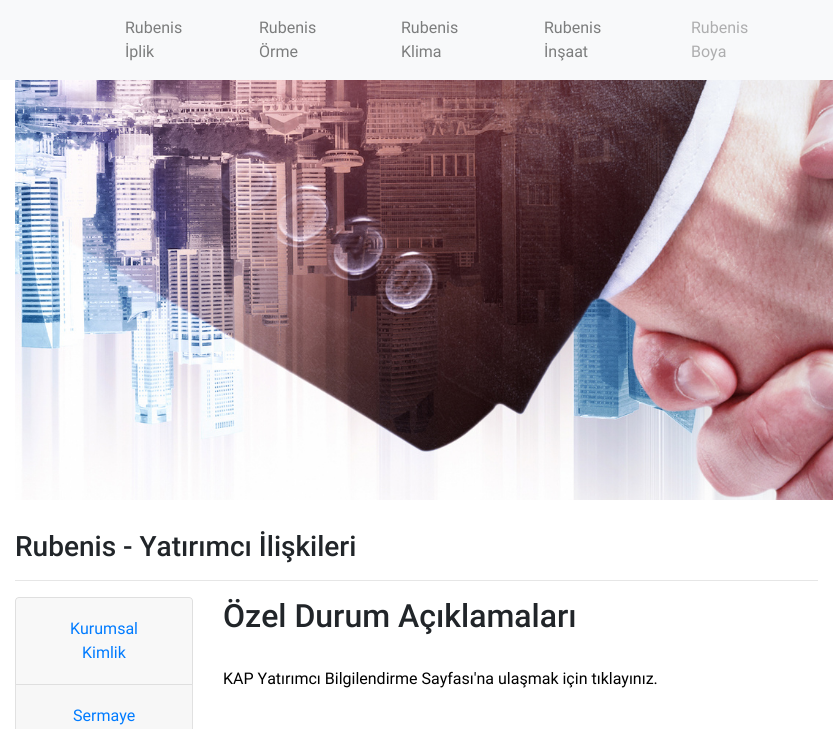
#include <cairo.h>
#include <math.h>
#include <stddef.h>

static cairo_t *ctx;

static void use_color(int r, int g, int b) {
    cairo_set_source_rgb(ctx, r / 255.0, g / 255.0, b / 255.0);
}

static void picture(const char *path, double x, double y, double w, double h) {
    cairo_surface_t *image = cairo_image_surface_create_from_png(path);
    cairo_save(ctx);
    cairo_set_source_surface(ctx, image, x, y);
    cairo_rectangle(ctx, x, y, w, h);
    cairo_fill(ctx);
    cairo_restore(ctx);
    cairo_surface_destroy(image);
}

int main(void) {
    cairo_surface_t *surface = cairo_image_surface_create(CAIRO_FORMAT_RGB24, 833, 729);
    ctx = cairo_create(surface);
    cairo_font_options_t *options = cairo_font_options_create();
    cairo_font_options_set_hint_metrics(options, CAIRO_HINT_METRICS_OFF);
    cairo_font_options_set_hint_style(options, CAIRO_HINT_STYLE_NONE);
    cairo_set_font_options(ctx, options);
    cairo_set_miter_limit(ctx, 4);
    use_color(255, 255, 255);
    cairo_paint(ctx);
    use_color(248, 249, 250);
    cairo_rectangle(ctx, 0, 0, 833, 80);
    cairo_fill(ctx);
    cairo_select_font_face(ctx, "Roboto", CAIRO_FONT_SLANT_NORMAL, CAIRO_FONT_WEIGHT_NORMAL);
    cairo_set_font_size(ctx, 16);
    use_color(124, 125, 125);
    cairo_move_to(ctx, 125, 33);
    cairo_show_text(ctx, "Rubenis");
    cairo_move_to(ctx, 125, 57);
    cairo_show_text(ctx, "İplik");
    cairo_move_to(ctx, 259, 33);
    cairo_show_text(ctx, "Rubenis");
    cairo_move_to(ctx, 259, 57);
    cairo_show_text(ctx, "Örme");
    cairo_move_to(ctx, 401, 33);
    cairo_show_text(ctx, "Rubenis");
    cairo_move_to(ctx, 401, 57);
    cairo_show_text(ctx, "Klima");
    cairo_move_to(ctx, 544, 33);
    cairo_show_text(ctx, "Rubenis");
    cairo_move_to(ctx, 544, 57);
    cairo_show_text(ctx, "İnşaat");
    use_color(174, 174, 175);
    cairo_move_to(ctx, 691, 33);
    cairo_show_text(ctx, "Rubenis");
    cairo_move_to(ctx, 691, 57);
    cairo_show_text(ctx, "Boya");
    picture("img1.png", 15, 80, 818, 420);
    cairo_select_font_face(ctx, "Roboto Medium", CAIRO_FONT_SLANT_NORMAL, CAIRO_FONT_WEIGHT_NORMAL);
    cairo_set_font_size(ctx, 28);
    use_color(33, 37, 41);
    cairo_move_to(ctx, 15, 556);
    cairo_show_text(ctx, "Rubenis - Yatırımcı İlişkileri");
    use_color(230, 230, 230);
    cairo_rectangle(ctx, 15, 580, 803, 1);
    cairo_fill(ctx);
    use_color(223, 223, 223);
    cairo_set_fill_rule(ctx, CAIRO_FILL_RULE_EVEN_ODD);
    cairo_new_path(ctx);
    cairo_move_to(ctx, 19, 597);
    cairo_line_to(ctx, 189, 597);
    cairo_curve_to(ctx, 191, 597, 193, 599, 193, 601);
    cairo_line_to(ctx, 193, 684);
    cairo_line_to(ctx, 15, 684);
    cairo_line_to(ctx, 15, 601);
    cairo_curve_to(ctx, 15, 599, 17, 597, 19, 597);
    cairo_close_path(ctx);
    cairo_move_to(ctx, 19, 598);
    cairo_line_to(ctx, 189, 598);
    cairo_curve_to(ctx, 191, 598, 192, 599, 192, 601);
    cairo_line_to(ctx, 192, 684);
    cairo_line_to(ctx, 16, 684);
    cairo_line_to(ctx, 16, 601);
    cairo_curve_to(ctx, 16, 599, 17, 598, 19, 598);
    cairo_close_path(ctx);
    cairo_fill(ctx);
    cairo_set_source_rgba(ctx, 0, 0, 0, 0.03);
    cairo_rectangle(ctx, 16, 598, 176, 86);
    cairo_fill(ctx);
    cairo_select_font_face(ctx, "Roboto", CAIRO_FONT_SLANT_NORMAL, CAIRO_FONT_WEIGHT_NORMAL);
    cairo_set_font_size(ctx, 16);
    use_color(0, 123, 255);
    cairo_move_to(ctx, 70, 634);
    cairo_show_text(ctx, "Kurumsal");
    cairo_move_to(ctx, 82, 658);
    cairo_show_text(ctx, "Kimlik");
    use_color(223, 223, 223);
    cairo_set_fill_rule(ctx, CAIRO_FILL_RULE_WINDING);
    cairo_new_path(ctx);
    cairo_move_to(ctx, 15, 684);
    cairo_line_to(ctx, 193, 684);
    cairo_line_to(ctx, 192, 685);
    cairo_line_to(ctx, 16, 685);
    cairo_close_path(ctx);
    cairo_fill(ctx);
    cairo_set_source_rgba(ctx, 0, 0, 0, 0.12);
    cairo_new_path(ctx);
    cairo_move_to(ctx, 193, 684);
    cairo_line_to(ctx, 193, 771);
    cairo_line_to(ctx, 192, 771);
    cairo_line_to(ctx, 192, 685);
    cairo_close_path(ctx);
    cairo_fill(ctx);
    cairo_new_path(ctx);
    cairo_move_to(ctx, 15, 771);
    cairo_line_to(ctx, 15, 684);
    cairo_line_to(ctx, 16, 685);
    cairo_line_to(ctx, 16, 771);
    cairo_close_path(ctx);
    cairo_fill(ctx);
    use_color(247, 247, 247);
    cairo_rectangle(ctx, 16, 685, 176, 44);
    cairo_fill(ctx);
    use_color(0, 123, 255);
    cairo_move_to(ctx, 73, 721);
    cairo_show_text(ctx, "Sermaye");
    cairo_select_font_face(ctx, "Roboto Medium", CAIRO_FONT_SLANT_NORMAL, CAIRO_FONT_WEIGHT_NORMAL);
    cairo_set_font_size(ctx, 32);
    use_color(33, 37, 41);
    cairo_move_to(ctx, 223, 627);
    cairo_show_text(ctx, "Özel Durum Açıklamaları");
    cairo_select_font_face(ctx, "Roboto", CAIRO_FONT_SLANT_NORMAL, CAIRO_FONT_WEIGHT_NORMAL);
    cairo_set_font_size(ctx, 16);
    use_color(0, 0, 0);
    cairo_move_to(ctx, 223, 684);
    cairo_show_text(ctx, "KAP Yatırımcı Bilgilendirme Sayfası'na ulaşmak için tıklayınız.");
    cairo_surface_write_to_png(surface, "result.png");
    cairo_font_options_destroy(options);
    cairo_destroy(ctx);
    cairo_surface_destroy(surface);
    return 0;
}
